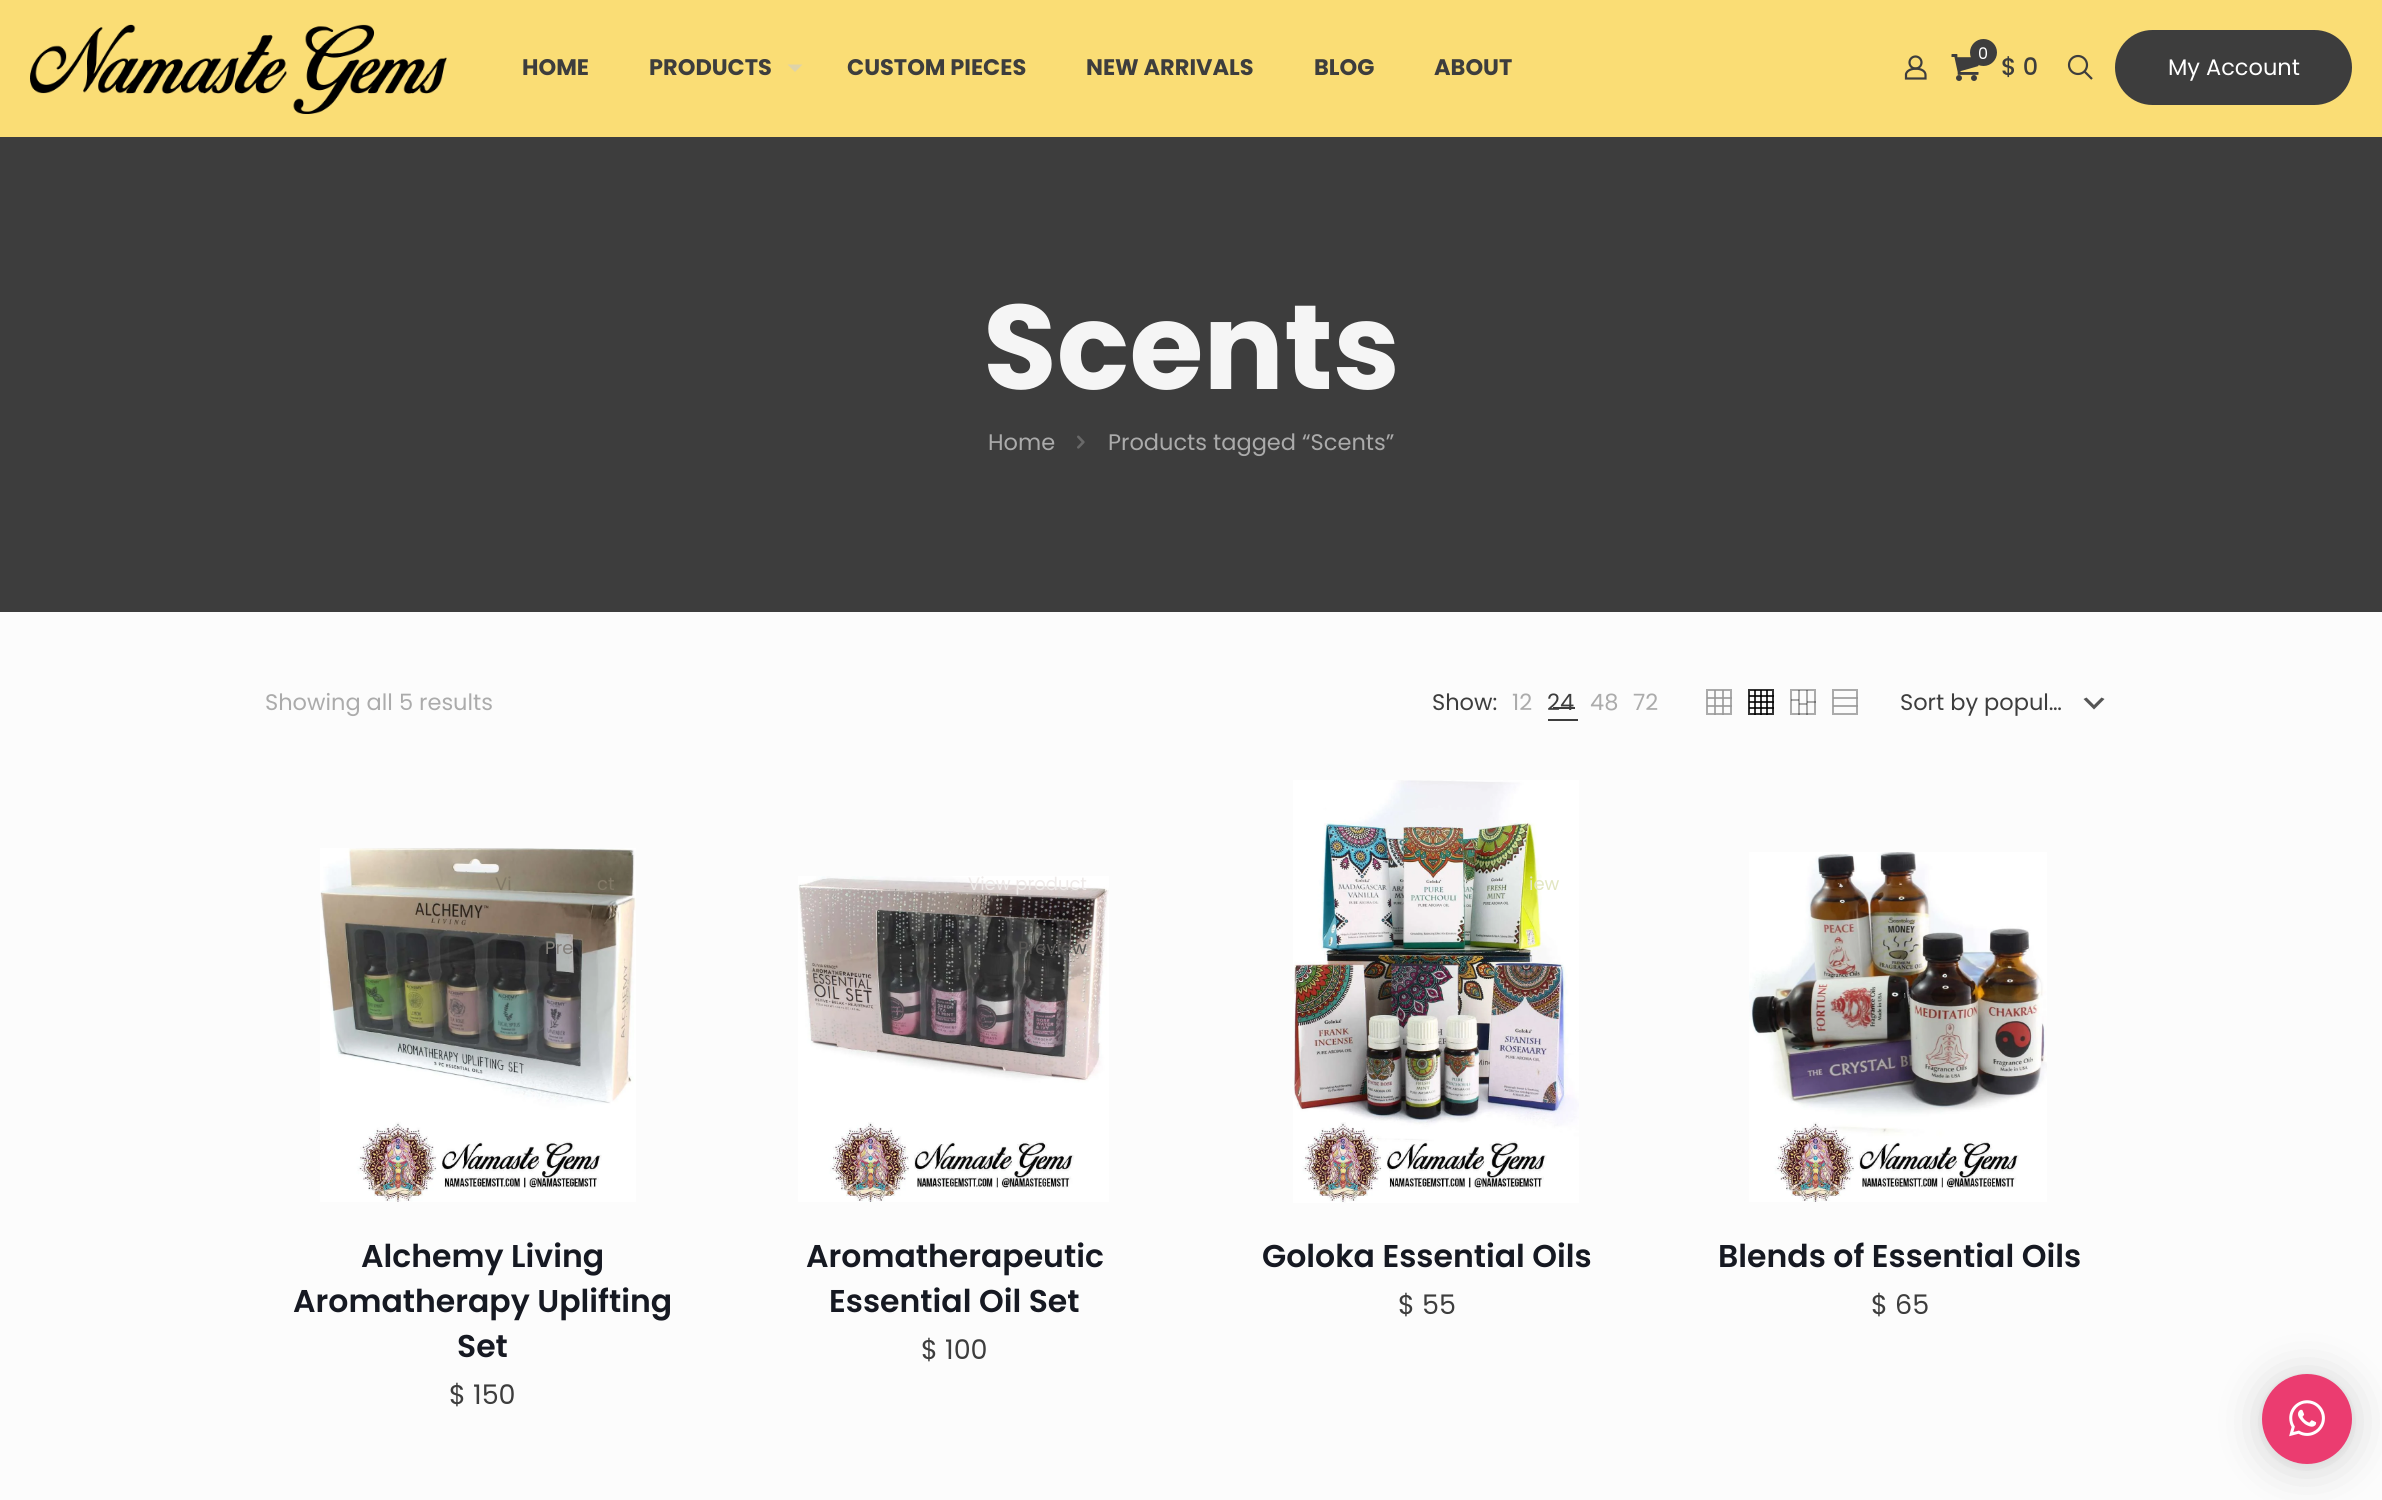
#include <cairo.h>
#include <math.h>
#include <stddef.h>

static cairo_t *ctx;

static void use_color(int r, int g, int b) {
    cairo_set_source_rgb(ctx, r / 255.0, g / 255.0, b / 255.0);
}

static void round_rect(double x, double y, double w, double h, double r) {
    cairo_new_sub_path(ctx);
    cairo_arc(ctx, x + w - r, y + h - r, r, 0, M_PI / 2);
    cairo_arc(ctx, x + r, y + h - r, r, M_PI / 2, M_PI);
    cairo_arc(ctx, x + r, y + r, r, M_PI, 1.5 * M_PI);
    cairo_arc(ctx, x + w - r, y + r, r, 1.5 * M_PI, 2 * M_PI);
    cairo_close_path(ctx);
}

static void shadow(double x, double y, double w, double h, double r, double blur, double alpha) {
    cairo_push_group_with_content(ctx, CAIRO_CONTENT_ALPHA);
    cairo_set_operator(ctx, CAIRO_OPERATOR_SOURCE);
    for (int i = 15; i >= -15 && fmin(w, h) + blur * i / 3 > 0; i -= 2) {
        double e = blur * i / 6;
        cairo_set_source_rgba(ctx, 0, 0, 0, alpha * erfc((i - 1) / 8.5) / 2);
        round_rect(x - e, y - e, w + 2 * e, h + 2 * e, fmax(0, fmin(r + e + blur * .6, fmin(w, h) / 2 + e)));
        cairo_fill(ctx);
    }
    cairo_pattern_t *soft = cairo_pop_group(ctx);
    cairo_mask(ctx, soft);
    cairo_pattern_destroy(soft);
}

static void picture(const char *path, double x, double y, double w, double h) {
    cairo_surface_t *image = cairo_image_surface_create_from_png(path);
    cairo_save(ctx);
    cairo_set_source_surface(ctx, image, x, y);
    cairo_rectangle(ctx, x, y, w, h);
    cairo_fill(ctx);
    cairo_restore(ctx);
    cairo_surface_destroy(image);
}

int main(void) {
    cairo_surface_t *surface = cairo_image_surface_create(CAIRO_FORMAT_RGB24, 2382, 1500);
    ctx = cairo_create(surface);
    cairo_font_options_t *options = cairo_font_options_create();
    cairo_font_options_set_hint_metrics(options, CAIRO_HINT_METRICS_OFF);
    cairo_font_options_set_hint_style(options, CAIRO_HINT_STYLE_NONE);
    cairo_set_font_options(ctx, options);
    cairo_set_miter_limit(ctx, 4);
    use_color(252, 252, 252);
    cairo_paint(ctx);
    use_color(250, 221, 117);
    cairo_rectangle(ctx, 0, 0, 2382, 137);
    cairo_fill(ctx);
    picture("img1.png", 30, 24, 417, 90);
    cairo_select_font_face(ctx, "Poppins", CAIRO_FONT_SLANT_NORMAL, CAIRO_FONT_WEIGHT_BOLD);
    cairo_set_font_size(ctx, 22.5);
    use_color(61, 61, 61);
    cairo_move_to(ctx, 522, 75);
    cairo_show_text(ctx, "HOME");
    cairo_move_to(ctx, 649, 75);
    cairo_show_text(ctx, "PRODUCTS");
    use_color(222, 211, 169);
    cairo_new_path(ctx);
    cairo_move_to(ctx, 787.5, 64.5);
    cairo_line_to(ctx, 802.5, 64.5);
    cairo_line_to(ctx, 795, 72);
    cairo_close_path(ctx);
    cairo_fill(ctx);
    use_color(61, 61, 61);
    cairo_move_to(ctx, 847, 75);
    cairo_show_text(ctx, "CUSTOM PIECES");
    cairo_move_to(ctx, 1086, 75);
    cairo_show_text(ctx, "NEW ARRIVALS");
    cairo_move_to(ctx, 1314, 75);
    cairo_show_text(ctx, "BLOG");
    cairo_move_to(ctx, 1434, 75);
    cairo_show_text(ctx, "ABOUT");
    cairo_new_path(ctx);
    cairo_arc(ctx, 1915.5, 62.5, 6, 0, 2 * M_PI);
    cairo_set_line_width(ctx, 2.2);
    cairo_stroke(ctx);
    cairo_new_path(ctx);
    cairo_move_to(ctx, 1925.5, 75);
    cairo_line_to(ctx, 1925.5, 78.5);
    cairo_line_to(ctx, 1906, 78.5);
    cairo_line_to(ctx, 1906, 74);
    cairo_curve_to(ctx, 1908, 66.5, 1925.5, 67, 1925.5, 75);
    cairo_close_path(ctx);
    cairo_stroke(ctx);
    picture("img2.png", 1951, 54, 28, 27);
    cairo_arc(ctx, 1983.5, 52.5, 13.5, 0, 2 * M_PI);
    cairo_fill(ctx);
    cairo_select_font_face(ctx, "Poppins", CAIRO_FONT_SLANT_NORMAL, CAIRO_FONT_WEIGHT_NORMAL);
    cairo_set_font_size(ctx, 16);
    use_color(255, 255, 255);
    cairo_move_to(ctx, 1978, 59);
    cairo_show_text(ctx, "0");
    cairo_select_font_face(ctx, "Poppins Medium", CAIRO_FONT_SLANT_NORMAL, CAIRO_FONT_WEIGHT_NORMAL);
    cairo_set_font_size(ctx, 24);
    use_color(61, 61, 61);
    cairo_move_to(ctx, 2001, 75);
    cairo_show_text(ctx, "$ 0");
    cairo_new_path(ctx);
    cairo_arc(ctx, 2078, 65, 9, 0, 2 * M_PI);
    cairo_stroke(ctx);
    cairo_new_path(ctx);
    cairo_move_to(ctx, 2084.5, 71.5);
    cairo_line_to(ctx, 2092, 79);
    cairo_stroke(ctx);
    round_rect(2115, 30, 237, 75, 37.5);
    cairo_fill(ctx);
    cairo_select_font_face(ctx, "Poppins", CAIRO_FONT_SLANT_NORMAL, CAIRO_FONT_WEIGHT_NORMAL);
    cairo_set_font_size(ctx, 22.5);
    use_color(255, 255, 255);
    cairo_move_to(ctx, 2168, 75);
    cairo_show_text(ctx, "My Account");
    use_color(61, 61, 61);
    cairo_rectangle(ctx, 0, 137, 2382, 475);
    cairo_fill(ctx);
    cairo_select_font_face(ctx, "Poppins", CAIRO_FONT_SLANT_NORMAL, CAIRO_FONT_WEIGHT_BOLD);
    cairo_set_font_size(ctx, 120);
    use_color(245, 245, 245);
    cairo_move_to(ctx, 983, 389);
    cairo_show_text(ctx, "Scents");
    cairo_select_font_face(ctx, "Poppins", CAIRO_FONT_SLANT_NORMAL, CAIRO_FONT_WEIGHT_NORMAL);
    cairo_set_font_size(ctx, 22.5);
    use_color(171, 171, 171);
    cairo_move_to(ctx, 988, 450);
    cairo_show_text(ctx, "Home");
    picture("img3.png", 1077, 435, 8, 14);
    cairo_move_to(ctx, 1108, 450);
    cairo_show_text(ctx, "Products tagged “Scents”");
    cairo_move_to(ctx, 265, 710);
    cairo_show_text(ctx, "Showing all 5 results");
    use_color(61, 61, 61);
    cairo_move_to(ctx, 1432, 710);
    cairo_show_text(ctx, "Show:");
    use_color(171, 171, 171);
    cairo_move_to(ctx, 1512, 710);
    cairo_show_text(ctx, "12");
    use_color(61, 61, 61);
    cairo_rectangle(ctx, 1553, 707, 22, 2);
    cairo_fill(ctx);
    cairo_move_to(ctx, 1547, 710);
    cairo_show_text(ctx, "24");
    cairo_rectangle(ctx, 1548, 719, 30, 2);
    cairo_fill(ctx);
    use_color(171, 171, 171);
    cairo_move_to(ctx, 1590, 710);
    cairo_show_text(ctx, "48");
    cairo_move_to(ctx, 1633, 710);
    cairo_show_text(ctx, "72");
    cairo_rectangle(ctx, 1714, 690, 2, 25);
    cairo_fill(ctx);
    cairo_rectangle(ctx, 1722, 690, 2, 25);
    cairo_fill(ctx);
    cairo_rectangle(ctx, 1707, 690, 24, 24);
    cairo_set_source_rgba(ctx, 0.592, 0.592, 0.592, 0.8);
    cairo_set_line_width(ctx, 2);
    cairo_stroke(ctx);
    cairo_rectangle(ctx, 1707, 697, 25, 2);
    cairo_fill(ctx);
    cairo_rectangle(ctx, 1707, 705, 25, 2);
    cairo_fill(ctx);
    picture("img4.png", 1748, 689, 26, 26);
    picture("img5.png", 1790, 689, 26, 26);
    cairo_rectangle(ctx, 1833, 690, 24, 24);
    use_color(171, 171, 171);
    cairo_stroke(ctx);
    cairo_set_source_rgba(ctx, 0.592, 0.592, 0.592, 0.8);
    cairo_rectangle(ctx, 1833, 697, 25, 2);
    cairo_fill(ctx);
    cairo_rectangle(ctx, 1833, 705, 25, 2);
    cairo_fill(ctx);
    use_color(85, 85, 85);
    cairo_new_path(ctx);
    cairo_move_to(ctx, 2086.5, 697.5);
    cairo_line_to(ctx, 2094, 705);
    cairo_line_to(ctx, 2101.5, 697.5);
    cairo_line_to(ctx, 2104.5, 699);
    cairo_line_to(ctx, 2094, 709.5);
    cairo_line_to(ctx, 2083.5, 699);
    cairo_close_path(ctx);
    cairo_fill(ctx);
    use_color(61, 61, 61);
    cairo_move_to(ctx, 1900, 710);
    cairo_show_text(ctx, "Sort by popul…");
    picture("img6.png", 320, 848, 316, 354);
    cairo_set_font_size(ctx, 18);
    use_color(130, 121, 103);
    cairo_move_to(ctx, 495, 890);
    cairo_show_text(ctx, "Vi");
    cairo_move_to(ctx, 597, 890);
    cairo_show_text(ctx, "ct");
    use_color(131, 127, 122);
    cairo_move_to(ctx, 545, 954);
    cairo_show_text(ctx, "Pre");
    cairo_select_font_face(ctx, "Poppins SemiBold", CAIRO_FONT_SLANT_NORMAL, CAIRO_FONT_WEIGHT_NORMAL);
    cairo_set_font_size(ctx, 31.5);
    use_color(22, 25, 34);
    cairo_move_to(ctx, 361, 1267);
    cairo_show_text(ctx, "Alchemy Living");
    cairo_move_to(ctx, 293, 1312);
    cairo_show_text(ctx, "Aromatherapy Uplifting");
    cairo_move_to(ctx, 457, 1357);
    cairo_show_text(ctx, "Set");
    cairo_select_font_face(ctx, "Poppins", CAIRO_FONT_SLANT_NORMAL, CAIRO_FONT_WEIGHT_NORMAL);
    cairo_set_font_size(ctx, 27);
    use_color(61, 61, 61);
    cairo_move_to(ctx, 449, 1404);
    cairo_show_text(ctx, "$ 150");
    picture("img7.png", 798, 876, 311, 326);
    cairo_set_font_size(ctx, 18);
    use_color(238, 234, 233);
    cairo_move_to(ctx, 968, 890);
    cairo_show_text(ctx, "View product");
    use_color(89, 87, 85);
    cairo_move_to(ctx, 1018, 954);
    cairo_show_text(ctx, "Preview");
    cairo_select_font_face(ctx, "Poppins SemiBold", CAIRO_FONT_SLANT_NORMAL, CAIRO_FONT_WEIGHT_NORMAL);
    cairo_set_font_size(ctx, 31.5);
    use_color(22, 25, 34);
    cairo_move_to(ctx, 806, 1267);
    cairo_show_text(ctx, "Aromatherapeutic");
    cairo_move_to(ctx, 829, 1312);
    cairo_show_text(ctx, "Essential Oil Set");
    cairo_select_font_face(ctx, "Poppins", CAIRO_FONT_SLANT_NORMAL, CAIRO_FONT_WEIGHT_NORMAL);
    cairo_set_font_size(ctx, 27);
    use_color(61, 61, 61);
    cairo_move_to(ctx, 921, 1359);
    cairo_show_text(ctx, "$ 100");
    picture("img8.png", 1293, 780, 286, 423);
    cairo_set_font_size(ctx, 18);
    use_color(226, 230, 194);
    cairo_move_to(ctx, 1529, 890);
    cairo_show_text(ctx, "iew");
    cairo_select_font_face(ctx, "Poppins SemiBold", CAIRO_FONT_SLANT_NORMAL, CAIRO_FONT_WEIGHT_NORMAL);
    cairo_set_font_size(ctx, 31.5);
    use_color(22, 25, 34);
    cairo_move_to(ctx, 1262, 1267);
    cairo_show_text(ctx, "Goloka Essential Oils");
    cairo_select_font_face(ctx, "Poppins", CAIRO_FONT_SLANT_NORMAL, CAIRO_FONT_WEIGHT_NORMAL);
    cairo_set_font_size(ctx, 27);
    use_color(61, 61, 61);
    cairo_move_to(ctx, 1398, 1314);
    cairo_show_text(ctx, "$ 55");
    picture("img9.png", 1749, 852, 298, 350);
    cairo_select_font_face(ctx, "Poppins SemiBold", CAIRO_FONT_SLANT_NORMAL, CAIRO_FONT_WEIGHT_NORMAL);
    cairo_set_font_size(ctx, 31.5);
    use_color(22, 25, 34);
    cairo_move_to(ctx, 1718, 1267);
    cairo_show_text(ctx, "Blends of Essential Oils");
    cairo_select_font_face(ctx, "Poppins", CAIRO_FONT_SLANT_NORMAL, CAIRO_FONT_WEIGHT_NORMAL);
    cairo_set_font_size(ctx, 27);
    use_color(61, 61, 61);
    cairo_move_to(ctx, 1871, 1314);
    cairo_show_text(ctx, "$ 65");
    use_color(0, 0, 0);
    shadow(2262, 1377, 90, 90, 45, 24, 0.16);
    shadow(2262, 1376, 90, 90, 45, 4.5, 0.06);
    use_color(235, 60, 112);
    cairo_arc(ctx, 2307, 1419, 45, 0, 2 * M_PI);
    cairo_fill(ctx);
    picture("img10.png", 2289, 1400, 36, 37);
    cairo_surface_write_to_png(surface, "result.png");
    cairo_font_options_destroy(options);
    cairo_destroy(ctx);
    cairo_surface_destroy(surface);
    return 0;
}
